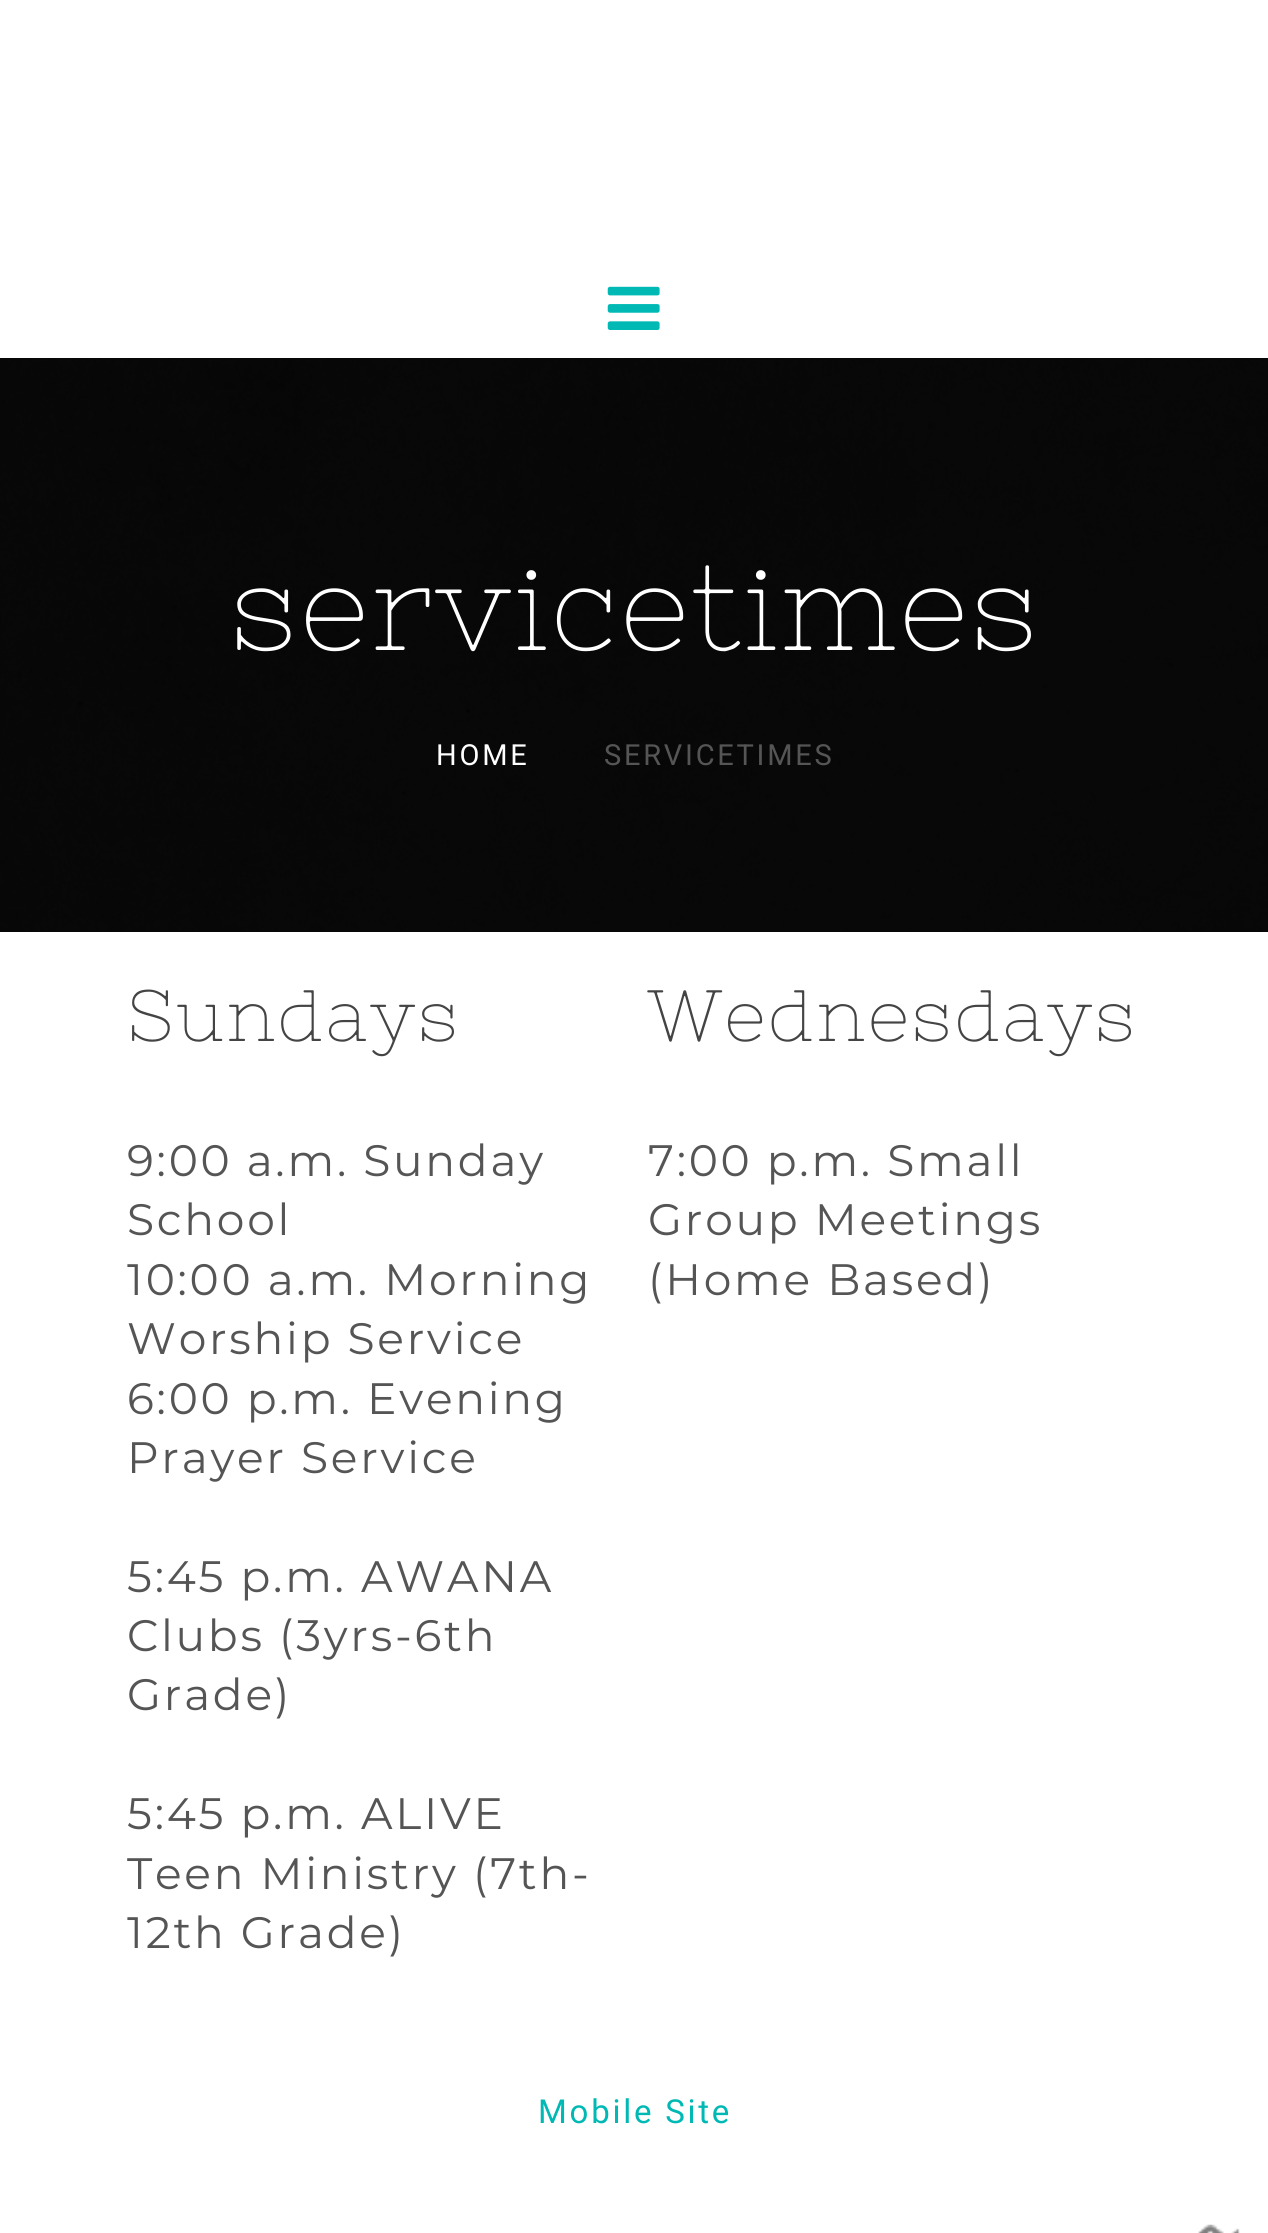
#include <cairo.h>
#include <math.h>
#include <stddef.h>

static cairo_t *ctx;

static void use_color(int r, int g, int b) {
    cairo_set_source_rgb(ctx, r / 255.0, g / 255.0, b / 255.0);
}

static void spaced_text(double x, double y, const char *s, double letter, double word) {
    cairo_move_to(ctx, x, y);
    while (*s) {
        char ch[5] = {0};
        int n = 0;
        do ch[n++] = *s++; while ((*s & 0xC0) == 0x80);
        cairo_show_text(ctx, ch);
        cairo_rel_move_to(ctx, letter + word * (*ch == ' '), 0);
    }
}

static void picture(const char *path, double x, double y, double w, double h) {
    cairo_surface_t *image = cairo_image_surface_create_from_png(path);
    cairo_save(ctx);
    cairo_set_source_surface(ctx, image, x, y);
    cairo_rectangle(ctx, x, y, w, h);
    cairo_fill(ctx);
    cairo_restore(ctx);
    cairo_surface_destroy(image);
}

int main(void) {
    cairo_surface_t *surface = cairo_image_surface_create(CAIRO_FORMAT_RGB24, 1268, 2233);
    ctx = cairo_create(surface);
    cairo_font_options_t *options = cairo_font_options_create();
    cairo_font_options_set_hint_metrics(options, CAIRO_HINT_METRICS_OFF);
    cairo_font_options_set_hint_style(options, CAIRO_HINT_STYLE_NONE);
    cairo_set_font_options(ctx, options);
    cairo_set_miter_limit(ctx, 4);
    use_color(255, 255, 255);
    cairo_paint(ctx);
    use_color(8, 8, 8);
    cairo_rectangle(ctx, 0, 931, 1268, 1);
    cairo_fill(ctx);
    picture("img1.png", 607, 286, 53, 44);
    picture("img2.png", 0, 358, 1268, 574);
    cairo_select_font_face(ctx, "Nixie One", CAIRO_FONT_SLANT_NORMAL, CAIRO_FONT_WEIGHT_NORMAL);
    cairo_set_font_size(ctx, 121);
    use_color(255, 255, 255);
    spaced_text(230, 650, "servicetimes", 2.75, 0);
    cairo_select_font_face(ctx, "Roboto", CAIRO_FONT_SLANT_NORMAL, CAIRO_FONT_WEIGHT_NORMAL);
    cairo_set_font_size(ctx, 29);
    spaced_text(436, 765, "HOME", 2.75, 0);
    use_color(85, 85, 85);
    spaced_text(604, 765, "SERVICETIMES", 2.75, 0);
    cairo_select_font_face(ctx, "Nixie One", CAIRO_FONT_SLANT_NORMAL, CAIRO_FONT_WEIGHT_NORMAL);
    cairo_set_font_size(ctx, 72.5);
    use_color(68, 68, 68);
    spaced_text(127, 1041, "Sundays", 2.75, 0);
    cairo_select_font_face(ctx, "Montserrat", CAIRO_FONT_SLANT_NORMAL, CAIRO_FONT_WEIGHT_NORMAL);
    cairo_set_font_size(ctx, 44);
    use_color(85, 85, 85);
    spaced_text(127, 1176, "9:00 a.m. Sunday", 2.75, 0);
    spaced_text(127, 1235, "School", 2.75, 0);
    spaced_text(127, 1295, "10:00 a.m. Morning", 2.75, 0);
    spaced_text(127, 1354, "Worship Service", 2.75, 0);
    spaced_text(127, 1414, "6:00 p.m. Evening", 2.75, 0);
    spaced_text(127, 1473, "Prayer Service", 2.75, 0);
    spaced_text(127, 1592, "5:45 p.m. AWANA", 2.75, 0);
    spaced_text(127, 1651, "Clubs (3yrs-6th", 2.75, 0);
    spaced_text(127, 1710, "Grade)", 2.75, 0);
    spaced_text(127, 1829, "5:45 p.m. ALIVE", 2.75, 0);
    spaced_text(127, 1889, "Teen Ministry (7th-", 2.75, 0);
    spaced_text(127, 1948, "12th Grade)", 2.75, 0);
    cairo_select_font_face(ctx, "Nixie One", CAIRO_FONT_SLANT_NORMAL, CAIRO_FONT_WEIGHT_NORMAL);
    cairo_set_font_size(ctx, 72.5);
    use_color(68, 68, 68);
    spaced_text(648, 1041, "Wednesdays", 2.75, 0);
    cairo_select_font_face(ctx, "Montserrat", CAIRO_FONT_SLANT_NORMAL, CAIRO_FONT_WEIGHT_NORMAL);
    cairo_set_font_size(ctx, 44);
    use_color(85, 85, 85);
    spaced_text(648, 1176, "7:00 p.m. Small", 2.75, 0);
    spaced_text(648, 1235, "Group Meetings", 2.75, 0);
    spaced_text(648, 1295, "(Home Based)", 2.75, 0);
    cairo_select_font_face(ctx, "Roboto", CAIRO_FONT_SLANT_NORMAL, CAIRO_FONT_WEIGHT_NORMAL);
    cairo_set_font_size(ctx, 33);
    use_color(0, 185, 180);
    spaced_text(538, 2123, "Mobile Site", 2.75, 0);
    picture("img3.png", 1198, 2224, 42, 9);
    cairo_surface_write_to_png(surface, "result.png");
    cairo_font_options_destroy(options);
    cairo_destroy(ctx);
    cairo_surface_destroy(surface);
    return 0;
}
